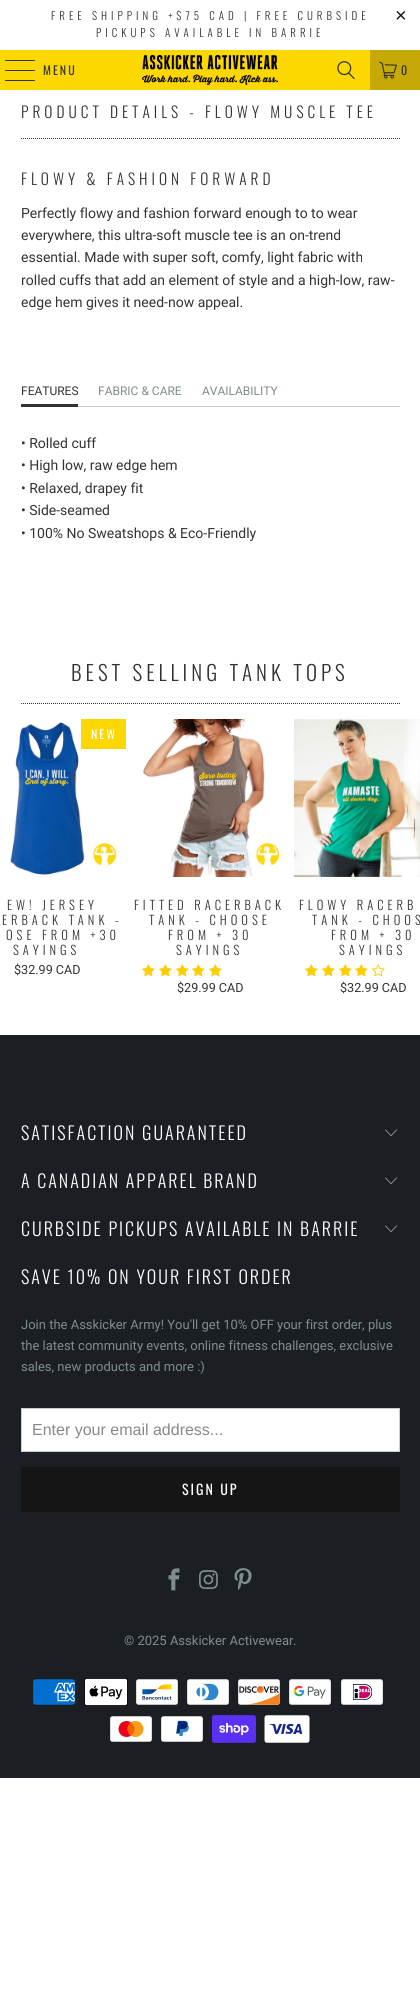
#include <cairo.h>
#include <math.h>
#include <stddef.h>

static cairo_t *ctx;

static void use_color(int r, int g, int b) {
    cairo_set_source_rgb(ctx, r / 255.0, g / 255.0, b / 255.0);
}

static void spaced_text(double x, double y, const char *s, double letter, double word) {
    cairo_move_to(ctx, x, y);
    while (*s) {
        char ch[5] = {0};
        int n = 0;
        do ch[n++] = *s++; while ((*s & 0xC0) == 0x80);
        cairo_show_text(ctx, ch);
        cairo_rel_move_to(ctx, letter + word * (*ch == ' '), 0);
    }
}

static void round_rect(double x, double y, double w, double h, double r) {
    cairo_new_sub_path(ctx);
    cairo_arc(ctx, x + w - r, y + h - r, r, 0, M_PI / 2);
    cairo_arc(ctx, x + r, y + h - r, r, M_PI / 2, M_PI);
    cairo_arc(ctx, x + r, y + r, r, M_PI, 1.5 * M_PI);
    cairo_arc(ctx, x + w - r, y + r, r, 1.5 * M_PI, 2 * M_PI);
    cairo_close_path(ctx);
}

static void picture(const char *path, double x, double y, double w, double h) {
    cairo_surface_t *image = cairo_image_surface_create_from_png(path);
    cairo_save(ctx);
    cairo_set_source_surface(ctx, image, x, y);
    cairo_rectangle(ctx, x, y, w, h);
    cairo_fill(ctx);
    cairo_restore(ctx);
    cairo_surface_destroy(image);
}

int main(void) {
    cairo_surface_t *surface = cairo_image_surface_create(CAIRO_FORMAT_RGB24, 420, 2003);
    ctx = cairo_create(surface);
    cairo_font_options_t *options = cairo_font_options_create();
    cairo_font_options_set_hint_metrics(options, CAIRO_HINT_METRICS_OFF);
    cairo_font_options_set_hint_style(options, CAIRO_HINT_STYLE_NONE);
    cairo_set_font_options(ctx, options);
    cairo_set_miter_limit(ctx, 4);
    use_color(255, 255, 255);
    cairo_paint(ctx);
    cairo_select_font_face(ctx, "Oswald Light", CAIRO_FONT_SLANT_NORMAL, CAIRO_FONT_WEIGHT_NORMAL);
    cairo_set_font_size(ctx, 11);
    use_color(51, 51, 51);
    spaced_text(51, 20, "FREE SHIPPING +$75 CAD | FREE CURBSIDE", 4, 0);
    spaced_text(96, 37, "PICKUPS AVAILABLE IN BARRIE", 4, 0);
    cairo_select_font_face(ctx, "Liberation Sans", CAIRO_FONT_SLANT_NORMAL, CAIRO_FONT_WEIGHT_NORMAL);
    cairo_set_font_size(ctx, 20);
    use_color(21, 21, 21);
    spaced_text(395, 22, "×", 4, 0);
    use_color(253, 215, 0);
    cairo_rectangle(ctx, 0, 50, 370, 40);
    cairo_fill(ctx);
    use_color(51, 51, 51);
    round_rect(5, 60, 30, 1, 0.5);
    cairo_fill(ctx);
    round_rect(5, 70, 30, 1, 0.5);
    cairo_fill(ctx);
    round_rect(5, 80, 30, 1, 0.5);
    cairo_fill(ctx);
    cairo_select_font_face(ctx, "Oswald", CAIRO_FONT_SLANT_NORMAL, CAIRO_FONT_WEIGHT_NORMAL);
    cairo_set_font_size(ctx, 12);
    spaced_text(43, 75, "MENU", 2, 0);
    picture("img1.png", 142, 55, 136, 30);
    picture("img2.png", 337, 61, 18, 19);
    use_color(198, 169, 6);
    cairo_rectangle(ctx, 370, 50, 50, 40);
    cairo_fill(ctx);
    picture("img3.png", 379, 61, 18, 18);
    use_color(51, 51, 51);
    spaced_text(401, 75, "0", 2, 0);
    cairo_select_font_face(ctx, "Oswald Light", CAIRO_FONT_SLANT_NORMAL, CAIRO_FONT_WEIGHT_NORMAL);
    cairo_set_font_size(ctx, 15.4);
    spaced_text(21, 118, "PRODUCT DETAILS - FLOWY MUSCLE TEE", 4, 0);
    cairo_new_path(ctx);
    cairo_move_to(ctx, 21, 138.5);
    cairo_line_to(ctx, 400, 138.5);
    cairo_set_line_width(ctx, 1);
    cairo_set_dash(ctx, (double[]){1, 1}, 2, 0);
    cairo_stroke(ctx);
    spaced_text(21, 185, "FLOWY & FASHION FORWARD", 4, 0);
    cairo_select_font_face(ctx, "Roboto", CAIRO_FONT_SLANT_NORMAL, CAIRO_FONT_WEIGHT_NORMAL);
    cairo_set_font_size(ctx, 14);
    cairo_move_to(ctx, 21, 218);
    cairo_show_text(ctx, "Perfectly flowy and fashion forward enough to to wear");
    cairo_move_to(ctx, 21, 240);
    cairo_show_text(ctx, "everywhere, this ultra-soft muscle tee is an on-trend");
    cairo_move_to(ctx, 21, 262);
    cairo_show_text(ctx, "essential. Made with super soft, comfy, light fabric with");
    cairo_move_to(ctx, 21, 285);
    cairo_show_text(ctx, "rolled cuffs that add an element of style and a high-low, raw-");
    cairo_move_to(ctx, 21, 307);
    cairo_show_text(ctx, "edge hem gives it need-now appeal.");
    use_color(204, 204, 204);
    cairo_rectangle(ctx, 78, 406, 322, 1);
    cairo_fill(ctx);
    use_color(51, 51, 51);
    cairo_rectangle(ctx, 21, 404, 57, 3);
    cairo_fill(ctx);
    cairo_set_font_size(ctx, 12);
    cairo_move_to(ctx, 21, 395);
    cairo_show_text(ctx, "FEATURES");
    use_color(127, 140, 141);
    cairo_move_to(ctx, 98, 395);
    cairo_show_text(ctx, "FABRIC & CARE");
    cairo_move_to(ctx, 202, 395);
    cairo_show_text(ctx, "AVAILABILITY");
    cairo_set_font_size(ctx, 14);
    use_color(51, 51, 51);
    cairo_move_to(ctx, 21, 448);
    cairo_show_text(ctx, "• Rolled cuff");
    cairo_move_to(ctx, 21, 470);
    cairo_show_text(ctx, "• High low, raw edge hem");
    cairo_move_to(ctx, 21, 493);
    cairo_show_text(ctx, "• Relaxed, drapey fit");
    cairo_move_to(ctx, 21, 515);
    cairo_show_text(ctx, "• Side-seamed");
    cairo_move_to(ctx, 21, 538);
    cairo_show_text(ctx, "• 100% No Sweatshops & Eco-Friendly");
    cairo_select_font_face(ctx, "Oswald Light", CAIRO_FONT_SLANT_NORMAL, CAIRO_FONT_WEIGHT_NORMAL);
    cairo_set_font_size(ctx, 21);
    spaced_text(71, 681, "BEST SELLING TANK TOPS", 4, 0);
    cairo_new_path(ctx);
    cairo_move_to(ctx, 21, 703.5);
    cairo_line_to(ctx, 400, 703.5);
    cairo_stroke(ctx);
    picture("img4.png", 10, 722, 107, 155);
    use_color(253, 215, 0);
    cairo_rectangle(ctx, 81, 719, 45, 30);
    cairo_fill(ctx);
    cairo_select_font_face(ctx, "Oswald", CAIRO_FONT_SLANT_NORMAL, CAIRO_FONT_WEIGHT_NORMAL);
    cairo_set_font_size(ctx, 12);
    use_color(255, 255, 255);
    spaced_text(91, 739, "NEW", 2, 0);
    cairo_select_font_face(ctx, "Oswald Light", CAIRO_FONT_SLANT_NORMAL, CAIRO_FONT_WEIGHT_NORMAL);
    cairo_set_font_size(ctx, 12.6);
    use_color(51, 51, 51);
    spaced_text(7, 910, "EW! JERSEY", 4, 0);
    spaced_text(2, 925, "ERBACK TANK -", 4, 0);
    spaced_text(6, 940, "OSE FROM +30", 4, 0);
    spaced_text(13, 955, "SAYINGS", 4, 0);
    cairo_select_font_face(ctx, "Roboto", CAIRO_FONT_SLANT_NORMAL, CAIRO_FONT_WEIGHT_NORMAL);
    cairo_move_to(ctx, 14, 974);
    cairo_show_text(ctx, "$32.99 CAD");
    picture("img5.png", 143, 719, 137, 158);
    cairo_select_font_face(ctx, "Oswald Light", CAIRO_FONT_SLANT_NORMAL, CAIRO_FONT_WEIGHT_NORMAL);
    spaced_text(134, 910, "FITTED RACERBACK", 4, 0);
    spaced_text(149, 925, "TANK - CHOOSE", 4, 0);
    spaced_text(168, 940, "FROM + 30", 4, 0);
    spaced_text(176, 955, "SAYINGS", 4, 0);
    picture("img6.png", 142, 964, 13, 13);
    picture("img6.png", 159, 964, 13, 13);
    picture("img6.png", 176, 964, 13, 13);
    picture("img6.png", 192, 964, 13, 13);
    picture("img6.png", 209, 964, 13, 13);
    cairo_select_font_face(ctx, "Roboto", CAIRO_FONT_SLANT_NORMAL, CAIRO_FONT_WEIGHT_NORMAL);
    cairo_move_to(ctx, 177, 992);
    cairo_show_text(ctx, "$29.99 CAD");
    picture("img7.png", 294, 719, 126, 158);
    cairo_select_font_face(ctx, "Oswald Light", CAIRO_FONT_SLANT_NORMAL, CAIRO_FONT_WEIGHT_NORMAL);
    spaced_text(299, 910, "FLOWY RACERB", 4, 0);
    spaced_text(312, 925, "TANK - CHOOS", 4, 0);
    spaced_text(331, 940, "FROM + 30", 4, 0);
    spaced_text(339, 955, "SAYINGS", 4, 0);
    picture("img6.png", 305, 964, 13, 13);
    picture("img6.png", 322, 964, 13, 13);
    picture("img6.png", 339, 964, 13, 13);
    picture("img6.png", 355, 964, 13, 13);
    picture("img8.png", 372, 964, 13, 13);
    cairo_select_font_face(ctx, "Roboto", CAIRO_FONT_SLANT_NORMAL, CAIRO_FONT_WEIGHT_NORMAL);
    cairo_move_to(ctx, 340, 992);
    cairo_show_text(ctx, "$32.99 CAD");
    use_color(27, 31, 35);
    cairo_rectangle(ctx, 0, 1035, 420, 743);
    cairo_fill(ctx);
    cairo_select_font_face(ctx, "Oswald Light", CAIRO_FONT_SLANT_NORMAL, CAIRO_FONT_WEIGHT_NORMAL);
    cairo_set_font_size(ctx, 18);
    use_color(255, 255, 255);
    spaced_text(21, 1140, "SATISFACTION GUARANTEED", 2, 0);
    picture("img9.png", 385, 1129, 12, 7);
    spaced_text(21, 1188, "A CANADIAN APPAREL BRAND", 2, 0);
    picture("img9.png", 385, 1177, 12, 7);
    spaced_text(21, 1236, "CURBSIDE PICKUPS AVAILABLE IN BARRIE", 2, 0);
    picture("img9.png", 385, 1225, 12, 7);
    spaced_text(21, 1284, "SAVE 10% ON YOUR FIRST ORDER", 2, 0);
    cairo_select_font_face(ctx, "Roboto", CAIRO_FONT_SLANT_NORMAL, CAIRO_FONT_WEIGHT_NORMAL);
    cairo_set_font_size(ctx, 13);
    use_color(127, 140, 141);
    cairo_move_to(ctx, 21, 1329);
    cairo_show_text(ctx, "Join the Asskicker Army! You'll get 10% OFF your first order, plus");
    cairo_move_to(ctx, 21, 1350);
    cairo_show_text(ctx, "the latest community events, online fitness challenges, exclusive");
    cairo_move_to(ctx, 21, 1371);
    cairo_show_text(ctx, "sales, new products and more :)");
    use_color(255, 255, 255);
    cairo_rectangle(ctx, 21.5, 1408.5, 378, 43);
    cairo_fill_preserve(ctx);
    use_color(204, 204, 204);
    cairo_set_dash(ctx, NULL, 0, 0);
    cairo_stroke(ctx);
    cairo_select_font_face(ctx, "Liberation Sans", CAIRO_FONT_SLANT_NORMAL, CAIRO_FONT_WEIGHT_NORMAL);
    cairo_set_font_size(ctx, 16);
    use_color(136, 136, 136);
    cairo_move_to(ctx, 32, 1435);
    cairo_show_text(ctx, "Enter your email address...");
    use_color(21, 21, 21);
    cairo_rectangle(ctx, 21, 1467, 379, 45);
    cairo_fill(ctx);
    cairo_select_font_face(ctx, "Oswald", CAIRO_FONT_SLANT_NORMAL, CAIRO_FONT_WEIGHT_NORMAL);
    cairo_set_font_size(ctx, 14);
    use_color(255, 255, 255);
    spaced_text(182, 1495, "SIGN UP", 2, 0);
    picture("img10.png", 168, 1568, 12, 23);
    picture("img11.png", 199, 1570, 19, 19);
    picture("img12.png", 234, 1568, 18, 22);
    cairo_select_font_face(ctx, "Roboto", CAIRO_FONT_SLANT_NORMAL, CAIRO_FONT_WEIGHT_NORMAL);
    cairo_set_font_size(ctx, 13);
    use_color(127, 140, 141);
    cairo_move_to(ctx, 124, 1645);
    cairo_show_text(ctx, "© 2025 Asskicker Activewear");
    cairo_move_to(ctx, 293, 1645);
    cairo_show_text(ctx, ".");
    picture("img13.png", 33, 1679, 42, 26);
    picture("img14.png", 84, 1678, 44, 28);
    picture("img15.png", 136, 1679, 42, 26);
    picture("img16.png", 187, 1679, 42, 26);
    picture("img17.png", 238, 1679, 42, 26);
    picture("img18.png", 289, 1679, 42, 26);
    picture("img19.png", 341, 1679, 42, 26);
    picture("img20.png", 110, 1716, 42, 26);
    picture("img21.png", 161, 1716, 42, 26);
    picture("img22.png", 212, 1715, 44, 28);
    picture("img23.png", 264, 1715, 46, 28);
    cairo_surface_write_to_png(surface, "result.png");
    cairo_font_options_destroy(options);
    cairo_destroy(ctx);
    cairo_surface_destroy(surface);
    return 0;
}
